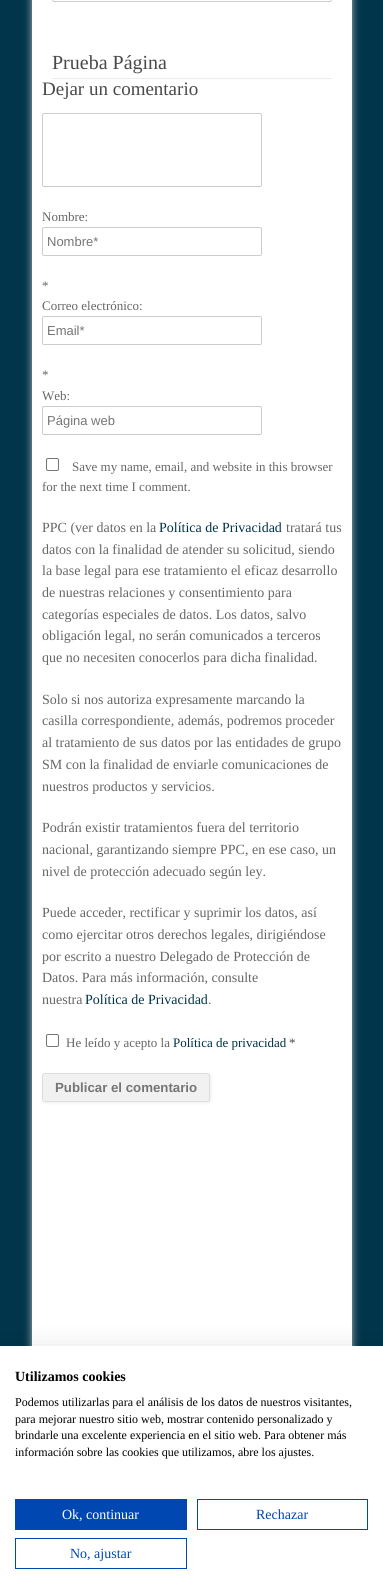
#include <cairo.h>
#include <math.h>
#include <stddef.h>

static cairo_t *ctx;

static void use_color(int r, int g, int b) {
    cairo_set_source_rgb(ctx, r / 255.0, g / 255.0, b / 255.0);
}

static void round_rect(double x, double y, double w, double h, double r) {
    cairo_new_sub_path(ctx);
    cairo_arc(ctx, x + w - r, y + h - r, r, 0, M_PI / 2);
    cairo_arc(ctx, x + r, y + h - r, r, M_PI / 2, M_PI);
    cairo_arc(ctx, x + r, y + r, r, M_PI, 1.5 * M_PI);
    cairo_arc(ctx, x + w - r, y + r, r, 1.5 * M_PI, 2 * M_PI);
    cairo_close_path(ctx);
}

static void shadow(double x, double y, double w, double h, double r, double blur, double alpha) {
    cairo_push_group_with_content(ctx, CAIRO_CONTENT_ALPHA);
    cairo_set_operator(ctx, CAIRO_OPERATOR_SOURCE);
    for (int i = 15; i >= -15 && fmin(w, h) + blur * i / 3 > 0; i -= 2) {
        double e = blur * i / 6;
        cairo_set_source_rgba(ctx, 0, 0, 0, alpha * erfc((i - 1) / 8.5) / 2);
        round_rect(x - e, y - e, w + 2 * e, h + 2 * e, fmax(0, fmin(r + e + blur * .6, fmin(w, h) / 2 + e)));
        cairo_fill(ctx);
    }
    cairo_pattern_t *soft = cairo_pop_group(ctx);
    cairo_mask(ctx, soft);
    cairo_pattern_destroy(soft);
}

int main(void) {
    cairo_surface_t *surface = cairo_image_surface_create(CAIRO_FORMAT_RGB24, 383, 1596);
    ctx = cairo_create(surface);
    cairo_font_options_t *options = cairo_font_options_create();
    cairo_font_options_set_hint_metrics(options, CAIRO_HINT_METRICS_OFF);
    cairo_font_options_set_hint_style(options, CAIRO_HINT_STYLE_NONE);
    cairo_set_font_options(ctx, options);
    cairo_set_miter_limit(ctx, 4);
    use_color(0, 53, 75);
    cairo_paint(ctx);
    use_color(187, 187, 187);
    shadow(32, -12, 320, 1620, 0, 4, 1);
    use_color(255, 255, 255);
    cairo_rectangle(ctx, 32, 0, 320, 1346);
    cairo_fill(ctx);
    round_rect(52.5, -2.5, 279, 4, 1.5);
    use_color(204, 204, 204);
    cairo_set_line_width(ctx, 1);
    cairo_stroke(ctx);
    use_color(236, 236, 236);
    cairo_rectangle(ctx, 52, 78, 280, 1);
    cairo_fill(ctx);
    cairo_select_font_face(ctx, "Liberation Serif", CAIRO_FONT_SLANT_NORMAL, CAIRO_FONT_WEIGHT_NORMAL);
    cairo_set_font_size(ctx, 20);
    use_color(73, 73, 73);
    cairo_move_to(ctx, 52, 69);
    cairo_show_text(ctx, "Prueba Página");
    cairo_set_font_size(ctx, 19);
    cairo_move_to(ctx, 42, 95);
    cairo_show_text(ctx, "Dejar un comentario");
    round_rect(42.5, 113.5, 219, 73, 1.5);
    use_color(204, 204, 204);
    cairo_stroke(ctx);
    cairo_set_font_size(ctx, 13);
    use_color(102, 102, 102);
    cairo_move_to(ctx, 42, 221);
    cairo_show_text(ctx, "Nombre:");
    round_rect(42.5, 227.5, 219, 28, 1.5);
    use_color(204, 204, 204);
    cairo_stroke(ctx);
    cairo_select_font_face(ctx, "Liberation Sans", CAIRO_FONT_SLANT_NORMAL, CAIRO_FONT_WEIGHT_NORMAL);
    use_color(117, 117, 117);
    cairo_move_to(ctx, 47, 246);
    cairo_show_text(ctx, "Nombre*");
    cairo_select_font_face(ctx, "Liberation Serif", CAIRO_FONT_SLANT_NORMAL, CAIRO_FONT_WEIGHT_NORMAL);
    use_color(102, 102, 102);
    cairo_move_to(ctx, 42, 290);
    cairo_show_text(ctx, "*");
    cairo_move_to(ctx, 42, 310);
    cairo_show_text(ctx, "Correo electrónico:");
    round_rect(42.5, 316.5, 219, 28, 1.5);
    use_color(204, 204, 204);
    cairo_stroke(ctx);
    cairo_select_font_face(ctx, "Liberation Sans", CAIRO_FONT_SLANT_NORMAL, CAIRO_FONT_WEIGHT_NORMAL);
    use_color(117, 117, 117);
    cairo_move_to(ctx, 47, 335);
    cairo_show_text(ctx, "Email*");
    cairo_select_font_face(ctx, "Liberation Serif", CAIRO_FONT_SLANT_NORMAL, CAIRO_FONT_WEIGHT_NORMAL);
    use_color(102, 102, 102);
    cairo_move_to(ctx, 42, 379);
    cairo_show_text(ctx, "*");
    cairo_move_to(ctx, 42, 400);
    cairo_show_text(ctx, "Web:");
    round_rect(42.5, 406.5, 219, 28, 1.5);
    use_color(204, 204, 204);
    cairo_stroke(ctx);
    cairo_select_font_face(ctx, "Liberation Sans", CAIRO_FONT_SLANT_NORMAL, CAIRO_FONT_WEIGHT_NORMAL);
    use_color(117, 117, 117);
    cairo_move_to(ctx, 47, 425);
    cairo_show_text(ctx, "Página web");
    round_rect(46.5, 458.5, 12, 12, 1.5);
    use_color(118, 118, 118);
    cairo_stroke(ctx);
    cairo_select_font_face(ctx, "Liberation Serif", CAIRO_FONT_SLANT_NORMAL, CAIRO_FONT_WEIGHT_NORMAL);
    use_color(102, 102, 102);
    cairo_move_to(ctx, 72, 471);
    cairo_show_text(ctx, "Save my name, email, and website in this browser");
    cairo_move_to(ctx, 42, 491);
    cairo_show_text(ctx, "for the next time I comment.");
    cairo_set_font_size(ctx, 14);
    cairo_move_to(ctx, 42, 532);
    cairo_show_text(ctx, "PPC (ver datos en la");
    use_color(0, 49, 71);
    cairo_move_to(ctx, 159, 532);
    cairo_show_text(ctx, "Política de Privacidad");
    use_color(102, 102, 102);
    cairo_move_to(ctx, 286, 532);
    cairo_show_text(ctx, "tratará tus");
    cairo_move_to(ctx, 42, 554);
    cairo_show_text(ctx, "datos con la finalidad de atender su solicitud, siendo");
    cairo_move_to(ctx, 42, 575);
    cairo_show_text(ctx, "la base legal para ese tratamiento el eficaz desarrollo");
    cairo_move_to(ctx, 42, 597);
    cairo_show_text(ctx, "de nuestras relaciones y consentimiento para");
    cairo_move_to(ctx, 42, 619);
    cairo_show_text(ctx, "categorías especiales de datos. Los datos, salvo");
    cairo_move_to(ctx, 42, 640);
    cairo_show_text(ctx, "obligación legal, no serán comunicados a terceros");
    cairo_move_to(ctx, 42, 662);
    cairo_show_text(ctx, "que no necesiten conocerlos para dicha finalidad.");
    cairo_move_to(ctx, 42, 704);
    cairo_show_text(ctx, "Solo si nos autoriza expresamente marcando la");
    cairo_move_to(ctx, 42, 725);
    cairo_show_text(ctx, "casilla correspondiente, además, podremos proceder");
    cairo_move_to(ctx, 42, 747);
    cairo_show_text(ctx, "al tratamiento de sus datos por las entidades de grupo");
    cairo_move_to(ctx, 42, 769);
    cairo_show_text(ctx, "SM con la finalidad de enviarle comunicaciones de");
    cairo_move_to(ctx, 42, 791);
    cairo_show_text(ctx, "nuestros productos y servicios.");
    cairo_move_to(ctx, 42, 832);
    cairo_show_text(ctx, "Podrán existir tratamientos fuera del territorio");
    cairo_move_to(ctx, 42, 854);
    cairo_show_text(ctx, "nacional, garantizando siempre PPC, en ese caso, un");
    cairo_move_to(ctx, 42, 876);
    cairo_show_text(ctx, "nivel de protección adecuado según ley.");
    cairo_move_to(ctx, 42, 917);
    cairo_show_text(ctx, "Puede acceder, rectificar y suprimir los datos, así");
    cairo_move_to(ctx, 42, 939);
    cairo_show_text(ctx, "como ejercitar otros derechos legales, dirigiéndose");
    cairo_move_to(ctx, 42, 961);
    cairo_show_text(ctx, "por escrito a nuestro Delegado de Protección de");
    cairo_move_to(ctx, 42, 982);
    cairo_show_text(ctx, "Datos. Para más información, consulte");
    cairo_move_to(ctx, 42, 1004);
    cairo_show_text(ctx, "nuestra");
    use_color(0, 49, 71);
    cairo_move_to(ctx, 85, 1004);
    cairo_show_text(ctx, "Política de Privacidad");
    use_color(102, 102, 102);
    cairo_move_to(ctx, 208, 1004);
    cairo_show_text(ctx, ".");
    round_rect(46.5, 1034.5, 12, 12, 1.5);
    use_color(118, 118, 118);
    cairo_stroke(ctx);
    cairo_set_font_size(ctx, 13);
    use_color(102, 102, 102);
    cairo_move_to(ctx, 66, 1047);
    cairo_show_text(ctx, "He leído y acepto la");
    use_color(0, 49, 71);
    cairo_move_to(ctx, 173, 1047);
    cairo_show_text(ctx, "Política de privacidad");
    use_color(73, 73, 73);
    cairo_move_to(ctx, 289, 1047);
    cairo_show_text(ctx, "*");
    use_color(236, 236, 236);
    shadow(43, 1074, 168, 29, 3, 1.5, 1);
    use_color(241, 241, 241);
    round_rect(42.5, 1073.5, 167, 28, 2.5);
    cairo_fill_preserve(ctx);
    use_color(222, 222, 222);
    cairo_stroke(ctx);
    cairo_select_font_face(ctx, "Liberation Sans", CAIRO_FONT_SLANT_NORMAL, CAIRO_FONT_WEIGHT_BOLD);
    cairo_set_font_size(ctx, 13.25);
    use_color(117, 117, 117);
    cairo_move_to(ctx, 55, 1092);
    cairo_show_text(ctx, "Publicar el comentario");
    use_color(0, 0, 0);
    shadow(0, 1346, 383, 250, 0, 12, 0.1);
    use_color(255, 255, 255);
    cairo_rectangle(ctx, 0, 1346, 383, 250);
    cairo_fill(ctx);
    cairo_select_font_face(ctx, "Liberation Serif", CAIRO_FONT_SLANT_NORMAL, CAIRO_FONT_WEIGHT_BOLD);
    cairo_set_font_size(ctx, 14);
    use_color(0, 0, 0);
    cairo_move_to(ctx, 15, 1381);
    cairo_show_text(ctx, "Utilizamos cookies");
    cairo_select_font_face(ctx, "Liberation Serif", CAIRO_FONT_SLANT_NORMAL, CAIRO_FONT_WEIGHT_NORMAL);
    cairo_set_font_size(ctx, 12);
    cairo_move_to(ctx, 15, 1406);
    cairo_show_text(ctx, "Podemos utilizarlas para el análisis de los datos de nuestros visitantes,");
    cairo_move_to(ctx, 15, 1423);
    cairo_show_text(ctx, "para mejorar nuestro sitio web, mostrar contenido personalizado y");
    cairo_move_to(ctx, 15, 1439);
    cairo_show_text(ctx, "brindarle una excelente experiencia en el sitio web. Para obtener más");
    cairo_move_to(ctx, 15, 1456);
    cairo_show_text(ctx, "información sobre las cookies que utilizamos, abre los ajustes.");
    use_color(0, 71, 178);
    cairo_rectangle(ctx, 15, 1499, 172, 31);
    cairo_fill(ctx);
    cairo_set_font_size(ctx, 14);
    use_color(255, 255, 255);
    cairo_move_to(ctx, 62, 1519);
    cairo_show_text(ctx, "Ok, continuar");
    cairo_rectangle(ctx, 197.5, 1499.5, 170, 30);
    use_color(0, 71, 178);
    cairo_stroke(ctx);
    cairo_move_to(ctx, 256, 1519);
    cairo_show_text(ctx, "Rechazar");
    cairo_rectangle(ctx, 15.5, 1538.5, 171, 30);
    cairo_stroke(ctx);
    cairo_move_to(ctx, 70, 1558);
    cairo_show_text(ctx, "No, ajustar");
    cairo_surface_write_to_png(surface, "result.png");
    cairo_font_options_destroy(options);
    cairo_destroy(ctx);
    cairo_surface_destroy(surface);
    return 0;
}
